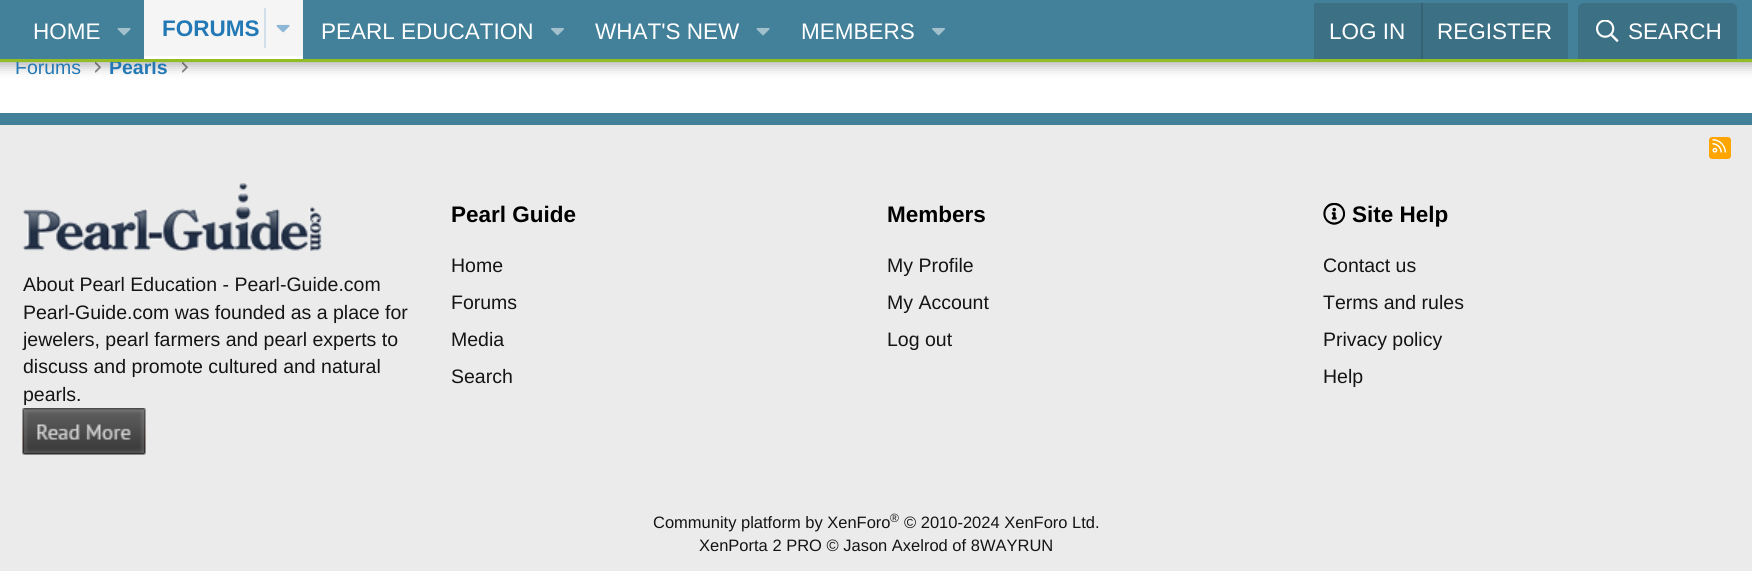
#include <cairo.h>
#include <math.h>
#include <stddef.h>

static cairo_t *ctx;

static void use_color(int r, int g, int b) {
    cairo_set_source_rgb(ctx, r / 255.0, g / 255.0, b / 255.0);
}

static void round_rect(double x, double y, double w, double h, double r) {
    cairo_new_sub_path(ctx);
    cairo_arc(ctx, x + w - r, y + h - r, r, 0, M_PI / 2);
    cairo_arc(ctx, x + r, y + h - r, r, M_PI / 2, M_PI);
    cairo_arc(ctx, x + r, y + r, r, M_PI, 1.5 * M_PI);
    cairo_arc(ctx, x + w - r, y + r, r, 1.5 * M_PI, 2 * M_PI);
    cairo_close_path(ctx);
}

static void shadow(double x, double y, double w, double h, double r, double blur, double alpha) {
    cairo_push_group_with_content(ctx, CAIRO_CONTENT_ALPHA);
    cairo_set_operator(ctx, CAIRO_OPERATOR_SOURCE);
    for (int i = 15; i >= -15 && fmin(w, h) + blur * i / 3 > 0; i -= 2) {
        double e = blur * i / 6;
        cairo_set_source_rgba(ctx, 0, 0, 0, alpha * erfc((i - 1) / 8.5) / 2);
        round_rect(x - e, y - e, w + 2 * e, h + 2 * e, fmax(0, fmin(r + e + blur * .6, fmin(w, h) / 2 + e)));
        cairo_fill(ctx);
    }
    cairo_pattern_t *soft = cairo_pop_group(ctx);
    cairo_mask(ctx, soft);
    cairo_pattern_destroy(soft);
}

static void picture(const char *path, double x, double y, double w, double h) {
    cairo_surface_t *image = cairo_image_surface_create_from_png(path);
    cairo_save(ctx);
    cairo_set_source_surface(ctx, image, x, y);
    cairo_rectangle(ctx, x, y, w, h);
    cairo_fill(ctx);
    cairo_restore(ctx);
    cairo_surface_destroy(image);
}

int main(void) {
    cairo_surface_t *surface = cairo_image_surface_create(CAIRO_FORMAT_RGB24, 1752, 571);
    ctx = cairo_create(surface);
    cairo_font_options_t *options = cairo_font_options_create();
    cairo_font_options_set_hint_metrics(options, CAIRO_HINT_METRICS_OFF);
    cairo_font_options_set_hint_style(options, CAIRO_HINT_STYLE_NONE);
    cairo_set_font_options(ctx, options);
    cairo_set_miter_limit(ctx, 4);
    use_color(255, 255, 255);
    cairo_paint(ctx);
    cairo_save(ctx);
    cairo_set_fill_rule(ctx, CAIRO_FILL_RULE_EVEN_ODD);
    cairo_new_path(ctx);
    cairo_move_to(ctx, 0, 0);
    cairo_line_to(ctx, 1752, 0);
    cairo_line_to(ctx, 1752, 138);
    cairo_line_to(ctx, 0, 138);
    cairo_close_path(ctx);
    cairo_move_to(ctx, 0, -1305);
    cairo_line_to(ctx, 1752, -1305);
    cairo_line_to(ctx, 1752, 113);
    cairo_line_to(ctx, 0, 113);
    cairo_close_path(ctx);
    cairo_clip(ctx);
    use_color(127, 127, 127);
    shadow(0, -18, 1752, 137, 0, 6, 1);
    cairo_restore(ctx);
    picture("img5.png", 95, 62, 6, 11);
    picture("img5.png", 182, 62, 6, 11);
    use_color(0, 0, 0);
    shadow(-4, -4, 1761, 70, 0, 6, 0.3);
    use_color(67, 128, 153);
    cairo_rectangle(ctx, 0, 0, 1752, 59);
    cairo_fill(ctx);
    cairo_select_font_face(ctx, "Liberation Sans", CAIRO_FONT_SLANT_NORMAL, CAIRO_FONT_WEIGHT_NORMAL);
    cairo_set_font_size(ctx, 19.5);
    use_color(35, 121, 181);
    cairo_move_to(ctx, 15, 74);
    cairo_show_text(ctx, "Forums");
    cairo_select_font_face(ctx, "Liberation Sans", CAIRO_FONT_SLANT_NORMAL, CAIRO_FONT_WEIGHT_BOLD);
    cairo_move_to(ctx, 109, 74);
    cairo_show_text(ctx, "Pearls");
    use_color(145, 188, 36);
    cairo_rectangle(ctx, 0, 59, 1752, 3);
    cairo_fill(ctx);
    cairo_select_font_face(ctx, "Liberation Sans", CAIRO_FONT_SLANT_NORMAL, CAIRO_FONT_WEIGHT_NORMAL);
    cairo_set_font_size(ctx, 22.5);
    use_color(255, 255, 255);
    cairo_move_to(ctx, 33, 39);
    cairo_show_text(ctx, "HOME");
    picture("img1.png", 117, 27, 14, 9);
    use_color(245, 245, 245);
    cairo_rectangle(ctx, 144, 0, 159, 56);
    cairo_fill(ctx);
    use_color(255, 255, 255);
    cairo_rectangle(ctx, 144, 56, 159, 3);
    cairo_fill(ctx);
    cairo_select_font_face(ctx, "Liberation Sans", CAIRO_FONT_SLANT_NORMAL, CAIRO_FONT_WEIGHT_BOLD);
    use_color(35, 121, 181);
    cairo_move_to(ctx, 162, 36);
    cairo_show_text(ctx, "FORUMS");
    use_color(208, 223, 234);
    cairo_rectangle(ctx, 264, 8, 2, 40);
    cairo_fill(ctx);
    picture("img2.png", 276, 24, 14, 9);
    cairo_select_font_face(ctx, "Liberation Sans", CAIRO_FONT_SLANT_NORMAL, CAIRO_FONT_WEIGHT_NORMAL);
    use_color(255, 255, 255);
    cairo_move_to(ctx, 321, 39);
    cairo_show_text(ctx, "PEARL EDUCATION");
    picture("img3.png", 551, 27, 13, 9);
    cairo_move_to(ctx, 595, 39);
    cairo_show_text(ctx, "WHAT'S NEW");
    picture("img1.png", 756, 27, 14, 9);
    cairo_move_to(ctx, 801, 39);
    cairo_show_text(ctx, "MEMBERS");
    picture("img3.png", 932, 27, 13, 9);
    use_color(60, 112, 133);
    cairo_rectangle(ctx, 1314, 3, 254, 56);
    cairo_fill(ctx);
    use_color(255, 255, 255);
    cairo_move_to(ctx, 1329, 39);
    cairo_show_text(ctx, "LOG IN");
    use_color(54, 98, 116);
    cairo_rectangle(ctx, 1421, 3, 2, 56);
    cairo_fill(ctx);
    use_color(255, 255, 255);
    cairo_move_to(ctx, 1437, 39);
    cairo_show_text(ctx, "REGISTER");
    use_color(60, 112, 133);
    cairo_new_path(ctx);
    cairo_move_to(ctx, 1584, 3);
    cairo_line_to(ctx, 1731, 3);
    cairo_curve_to(ctx, 1734.5, 3, 1737, 5.5, 1737, 9);
    cairo_line_to(ctx, 1737, 59);
    cairo_line_to(ctx, 1578, 59);
    cairo_line_to(ctx, 1578, 9);
    cairo_curve_to(ctx, 1578, 5.5, 1580.5, 3, 1584, 3);
    cairo_close_path(ctx);
    cairo_fill(ctx);
    picture("img4.png", 1596, 20, 23, 22);
    use_color(255, 255, 255);
    cairo_move_to(ctx, 1628, 39);
    cairo_show_text(ctx, "SEARCH");
    use_color(235, 235, 235);
    cairo_rectangle(ctx, 0, 125, 1752, 446);
    cairo_fill(ctx);
    use_color(67, 128, 153);
    cairo_rectangle(ctx, 0, 113, 1752, 12);
    cairo_fill(ctx);
    use_color(255, 165, 0);
    round_rect(1709, 137, 22, 22, 3);
    cairo_fill(ctx);
    picture("img6.png", 1712, 139, 15, 14);
    picture("img7.png", 22, 183, 301, 69);
    cairo_set_font_size(ctx, 19.5);
    use_color(20, 20, 20);
    cairo_move_to(ctx, 23, 291);
    cairo_show_text(ctx, "About Pearl Education - Pearl-Guide.com");
    cairo_move_to(ctx, 23, 319);
    cairo_show_text(ctx, "Pearl-Guide.com was founded as a place for");
    cairo_move_to(ctx, 23, 346);
    cairo_show_text(ctx, "jewelers, pearl farmers and pearl experts to");
    cairo_move_to(ctx, 23, 373);
    cairo_show_text(ctx, "discuss and promote cultured and natural");
    cairo_move_to(ctx, 23, 401);
    cairo_show_text(ctx, "pearls.");
    picture("img8.png", 22, 408, 124, 47);
    cairo_select_font_face(ctx, "Liberation Sans", CAIRO_FONT_SLANT_NORMAL, CAIRO_FONT_WEIGHT_BOLD);
    cairo_set_font_size(ctx, 22.5);
    use_color(0, 0, 0);
    cairo_move_to(ctx, 451, 222);
    cairo_show_text(ctx, "Pearl Guide");
    cairo_select_font_face(ctx, "Liberation Sans", CAIRO_FONT_SLANT_NORMAL, CAIRO_FONT_WEIGHT_NORMAL);
    cairo_set_font_size(ctx, 19.5);
    use_color(20, 20, 20);
    cairo_move_to(ctx, 451, 272);
    cairo_show_text(ctx, "Home");
    cairo_move_to(ctx, 451, 309);
    cairo_show_text(ctx, "Forums");
    cairo_move_to(ctx, 451, 346);
    cairo_show_text(ctx, "Media");
    cairo_move_to(ctx, 451, 383);
    cairo_show_text(ctx, "Search");
    cairo_select_font_face(ctx, "Liberation Sans", CAIRO_FONT_SLANT_NORMAL, CAIRO_FONT_WEIGHT_BOLD);
    cairo_set_font_size(ctx, 22.5);
    use_color(0, 0, 0);
    cairo_move_to(ctx, 887, 222);
    cairo_show_text(ctx, "Members");
    cairo_select_font_face(ctx, "Liberation Sans", CAIRO_FONT_SLANT_NORMAL, CAIRO_FONT_WEIGHT_NORMAL);
    cairo_set_font_size(ctx, 19.5);
    use_color(20, 20, 20);
    cairo_move_to(ctx, 887, 272);
    cairo_show_text(ctx, "My Profile");
    cairo_move_to(ctx, 887, 309);
    cairo_show_text(ctx, "My Account");
    cairo_move_to(ctx, 887, 346);
    cairo_show_text(ctx, "Log out");
    picture("img9.png", 1323, 202, 23, 23);
    cairo_select_font_face(ctx, "Liberation Sans", CAIRO_FONT_SLANT_NORMAL, CAIRO_FONT_WEIGHT_BOLD);
    cairo_set_font_size(ctx, 22.5);
    use_color(0, 0, 0);
    cairo_move_to(ctx, 1352, 222);
    cairo_show_text(ctx, "Site Help");
    cairo_select_font_face(ctx, "Liberation Sans", CAIRO_FONT_SLANT_NORMAL, CAIRO_FONT_WEIGHT_NORMAL);
    cairo_set_font_size(ctx, 19.5);
    use_color(20, 20, 20);
    cairo_move_to(ctx, 1323, 272);
    cairo_show_text(ctx, "Contact us");
    cairo_move_to(ctx, 1323, 309);
    cairo_show_text(ctx, "Terms and rules");
    cairo_move_to(ctx, 1323, 346);
    cairo_show_text(ctx, "Privacy policy");
    cairo_move_to(ctx, 1323, 383);
    cairo_show_text(ctx, "Help");
    cairo_set_font_size(ctx, 16.5);
    cairo_move_to(ctx, 653, 528);
    cairo_show_text(ctx, "Community platform by XenForo");
    cairo_set_font_size(ctx, 12);
    cairo_move_to(ctx, 890, 522);
    cairo_show_text(ctx, "®");
    cairo_set_font_size(ctx, 16.5);
    cairo_move_to(ctx, 904, 528);
    cairo_show_text(ctx, "© 2010-2024 XenForo Ltd.");
    cairo_move_to(ctx, 699, 551);
    cairo_show_text(ctx, "XenPorta 2 PRO © Jason Axelrod of 8WAYRUN");
    cairo_surface_write_to_png(surface, "result.png");
    cairo_font_options_destroy(options);
    cairo_destroy(ctx);
    cairo_surface_destroy(surface);
    return 0;
}
